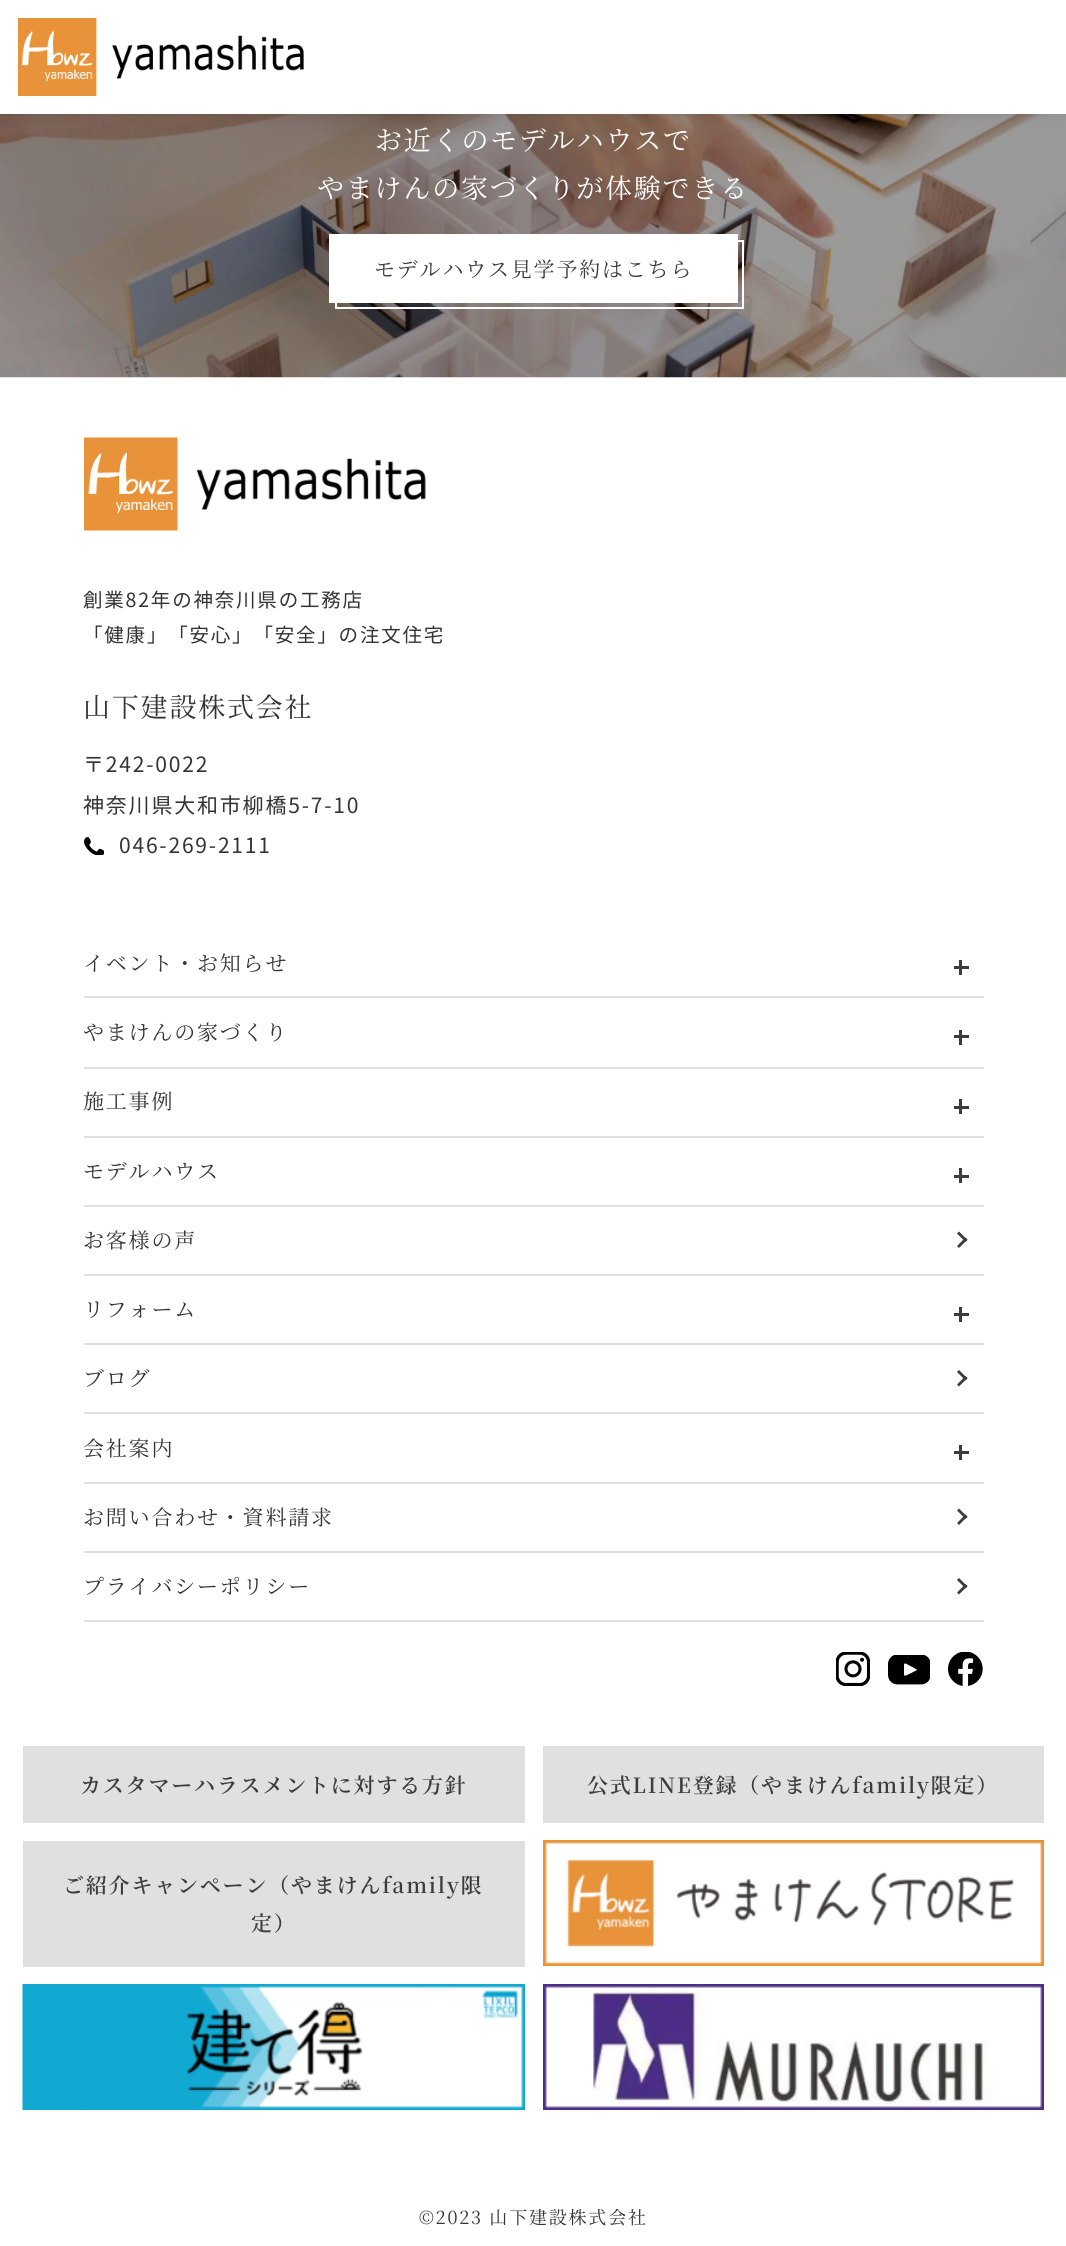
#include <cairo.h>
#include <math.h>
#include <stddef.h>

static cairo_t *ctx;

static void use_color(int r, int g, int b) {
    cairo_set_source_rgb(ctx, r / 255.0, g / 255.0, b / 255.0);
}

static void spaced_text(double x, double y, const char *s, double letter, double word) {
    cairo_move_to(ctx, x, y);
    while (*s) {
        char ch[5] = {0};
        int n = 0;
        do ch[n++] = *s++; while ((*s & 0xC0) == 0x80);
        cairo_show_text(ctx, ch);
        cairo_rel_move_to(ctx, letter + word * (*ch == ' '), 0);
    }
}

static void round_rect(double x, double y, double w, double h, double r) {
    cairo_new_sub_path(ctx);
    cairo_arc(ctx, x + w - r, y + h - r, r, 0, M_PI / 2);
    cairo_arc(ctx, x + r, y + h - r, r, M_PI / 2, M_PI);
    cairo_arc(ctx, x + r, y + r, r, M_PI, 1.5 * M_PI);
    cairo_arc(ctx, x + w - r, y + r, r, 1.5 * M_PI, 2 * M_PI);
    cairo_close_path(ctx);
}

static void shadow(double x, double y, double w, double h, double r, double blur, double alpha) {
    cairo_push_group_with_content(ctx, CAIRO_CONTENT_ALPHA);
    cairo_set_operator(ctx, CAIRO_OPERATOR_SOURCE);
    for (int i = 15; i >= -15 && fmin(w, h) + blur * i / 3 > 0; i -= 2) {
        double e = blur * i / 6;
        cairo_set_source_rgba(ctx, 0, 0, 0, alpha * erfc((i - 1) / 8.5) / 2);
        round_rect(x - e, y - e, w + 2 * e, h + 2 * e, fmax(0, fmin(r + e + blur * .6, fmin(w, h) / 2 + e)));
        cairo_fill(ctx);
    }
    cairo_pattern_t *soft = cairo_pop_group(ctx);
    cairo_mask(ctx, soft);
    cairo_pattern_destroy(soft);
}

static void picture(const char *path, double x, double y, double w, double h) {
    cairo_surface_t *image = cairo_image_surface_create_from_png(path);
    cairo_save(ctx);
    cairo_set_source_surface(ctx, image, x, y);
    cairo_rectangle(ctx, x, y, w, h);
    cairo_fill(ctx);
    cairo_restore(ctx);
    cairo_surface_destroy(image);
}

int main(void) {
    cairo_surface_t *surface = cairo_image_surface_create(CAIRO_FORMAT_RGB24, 1066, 2246);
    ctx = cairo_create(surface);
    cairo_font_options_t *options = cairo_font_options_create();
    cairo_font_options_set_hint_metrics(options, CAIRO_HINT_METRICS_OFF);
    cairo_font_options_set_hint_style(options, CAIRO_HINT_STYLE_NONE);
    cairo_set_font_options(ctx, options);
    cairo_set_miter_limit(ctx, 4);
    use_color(255, 255, 255);
    cairo_paint(ctx);
    picture("img2.png", 0, 114, 1066, 264);
    use_color(0, 0, 0);
    shadow(0, 0, 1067, 114, 0, 7.5, 0.1);
    use_color(255, 255, 255);
    cairo_rectangle(ctx, 0, 0, 1066, 114);
    cairo_fill(ctx);
    picture("img1.png", 18, 18, 286, 78);
    cairo_select_font_face(ctx, "Noto Serif JP", CAIRO_FONT_SLANT_NORMAL, CAIRO_FONT_WEIGHT_NORMAL);
    cairo_set_font_size(ctx, 27);
    spaced_text(375, 150, "お近くのモデルハウスで", 1.8, 0);
    spaced_text(317, 198, "やまけんの家づくりが体験できる", 1.8, 0);
    cairo_rectangle(ctx, 329, 234, 409, 69);
    cairo_fill(ctx);
    cairo_rectangle(ctx, 336, 241, 407, 67);
    cairo_stroke(ctx);
    cairo_set_font_size(ctx, 21);
    use_color(60, 60, 60);
    spaced_text(374, 277, "モデルハウス見学予約はこちら", 1.8, 0);
    picture("img3.png", 84, 437, 342, 94);
    cairo_select_font_face(ctx, "Noto Sans JP", CAIRO_FONT_SLANT_NORMAL, CAIRO_FONT_WEIGHT_NORMAL);
    cairo_set_font_size(ctx, 19.5);
    use_color(52, 52, 52);
    spaced_text(83, 607, "創業82年の神奈川県の⼯務店", 1.8, 0);
    spaced_text(83, 642, "「健康」「安⼼」「安全」の注⽂住宅", 1.8, 0);
    cairo_select_font_face(ctx, "Noto Serif JP", CAIRO_FONT_SLANT_NORMAL, CAIRO_FONT_WEIGHT_NORMAL);
    cairo_set_font_size(ctx, 27);
    spaced_text(83, 717, "⼭下建設株式会社", 1.8, 0);
    cairo_select_font_face(ctx, "Noto Sans JP", CAIRO_FONT_SLANT_NORMAL, CAIRO_FONT_WEIGHT_NORMAL);
    cairo_set_font_size(ctx, 21);
    spaced_text(83, 772, "〒242-0022", 1.8, 0);
    spaced_text(83, 813, "神奈川県⼤和市柳橋5-7-10", 1.8, 0);
    picture("img4.png", 84, 837, 20, 18);
    spaced_text(119, 853, "046-269-2111", 1.8, 0);
    use_color(224, 224, 224);
    cairo_rectangle(ctx, 84, 996, 900, 2);
    cairo_fill(ctx);
    cairo_select_font_face(ctx, "Noto Serif JP", CAIRO_FONT_SLANT_NORMAL, CAIRO_FONT_WEIGHT_NORMAL);
    use_color(52, 52, 52);
    spaced_text(83, 971, "イベント・お知らせ", 1.8, 0);
    use_color(60, 60, 60);
    cairo_rectangle(ctx, 959, 960, 3, 15);
    cairo_fill(ctx);
    cairo_rectangle(ctx, 954, 966, 15, 3);
    cairo_fill(ctx);
    use_color(224, 224, 224);
    cairo_rectangle(ctx, 84, 1067, 900, 2);
    cairo_fill(ctx);
    use_color(52, 52, 52);
    spaced_text(83, 1040, "やまけんの家づくり", 1.8, 0);
    use_color(60, 60, 60);
    cairo_rectangle(ctx, 959, 1030, 3, 15);
    cairo_fill(ctx);
    cairo_rectangle(ctx, 954, 1035, 15, 3);
    cairo_fill(ctx);
    use_color(224, 224, 224);
    cairo_rectangle(ctx, 84, 1136, 900, 2);
    cairo_fill(ctx);
    use_color(52, 52, 52);
    spaced_text(83, 1109, "施工事例", 1.8, 0);
    use_color(60, 60, 60);
    cairo_rectangle(ctx, 959, 1099, 3, 15);
    cairo_fill(ctx);
    cairo_rectangle(ctx, 954, 1106, 15, 3);
    cairo_fill(ctx);
    use_color(224, 224, 224);
    cairo_rectangle(ctx, 84, 1205, 900, 2);
    cairo_fill(ctx);
    use_color(52, 52, 52);
    spaced_text(83, 1179, "モデルハウス", 1.8, 0);
    use_color(60, 60, 60);
    cairo_rectangle(ctx, 959, 1168, 3, 15);
    cairo_fill(ctx);
    cairo_rectangle(ctx, 954, 1175, 15, 3);
    cairo_fill(ctx);
    use_color(224, 224, 224);
    cairo_rectangle(ctx, 84, 1274, 900, 2);
    cairo_fill(ctx);
    use_color(52, 52, 52);
    spaced_text(83, 1248, "お客様の声", 1.8, 0);
    use_color(60, 60, 60);
    cairo_new_path(ctx);
    cairo_move_to(ctx, 959, 1231.5);
    cairo_line_to(ctx, 967.5, 1240);
    cairo_line_to(ctx, 965.5, 1242);
    cairo_line_to(ctx, 957, 1233.5);
    cairo_close_path(ctx);
    cairo_fill(ctx);
    cairo_new_path(ctx);
    cairo_move_to(ctx, 957, 1246);
    cairo_line_to(ctx, 965.5, 1237.5);
    cairo_line_to(ctx, 967.5, 1239.5);
    cairo_line_to(ctx, 959, 1248);
    cairo_close_path(ctx);
    cairo_fill(ctx);
    use_color(224, 224, 224);
    cairo_rectangle(ctx, 84, 1343, 900, 2);
    cairo_fill(ctx);
    use_color(52, 52, 52);
    spaced_text(83, 1317, "リフォーム", 1.8, 0);
    use_color(60, 60, 60);
    cairo_rectangle(ctx, 959, 1307, 3, 15);
    cairo_fill(ctx);
    cairo_rectangle(ctx, 954, 1313, 15, 3);
    cairo_fill(ctx);
    use_color(224, 224, 224);
    cairo_rectangle(ctx, 84, 1412, 900, 2);
    cairo_fill(ctx);
    use_color(52, 52, 52);
    spaced_text(83, 1386, "ブログ", 1.8, 0);
    use_color(60, 60, 60);
    cairo_new_path(ctx);
    cairo_move_to(ctx, 959, 1370);
    cairo_line_to(ctx, 967.5, 1378.5);
    cairo_line_to(ctx, 965.5, 1380.5);
    cairo_line_to(ctx, 957, 1372);
    cairo_close_path(ctx);
    cairo_fill(ctx);
    cairo_new_path(ctx);
    cairo_move_to(ctx, 957, 1384.5);
    cairo_line_to(ctx, 965.5, 1376);
    cairo_line_to(ctx, 967.5, 1378);
    cairo_line_to(ctx, 959, 1386.5);
    cairo_close_path(ctx);
    cairo_fill(ctx);
    use_color(224, 224, 224);
    cairo_rectangle(ctx, 84, 1482, 900, 2);
    cairo_fill(ctx);
    use_color(52, 52, 52);
    spaced_text(83, 1456, "会社案内", 1.8, 0);
    use_color(60, 60, 60);
    cairo_rectangle(ctx, 959, 1445, 3, 15);
    cairo_fill(ctx);
    cairo_rectangle(ctx, 954, 1451, 15, 3);
    cairo_fill(ctx);
    use_color(224, 224, 224);
    cairo_rectangle(ctx, 84, 1551, 900, 2);
    cairo_fill(ctx);
    use_color(52, 52, 52);
    spaced_text(83, 1525, "お問い合わせ・資料請求", 1.8, 0);
    use_color(60, 60, 60);
    cairo_new_path(ctx);
    cairo_move_to(ctx, 959, 1508.5);
    cairo_line_to(ctx, 967.5, 1517);
    cairo_line_to(ctx, 965.5, 1519);
    cairo_line_to(ctx, 957, 1510.5);
    cairo_close_path(ctx);
    cairo_fill(ctx);
    cairo_new_path(ctx);
    cairo_move_to(ctx, 957, 1523);
    cairo_line_to(ctx, 965.5, 1514.5);
    cairo_line_to(ctx, 967.5, 1516.5);
    cairo_line_to(ctx, 959, 1525);
    cairo_close_path(ctx);
    cairo_fill(ctx);
    use_color(224, 224, 224);
    cairo_rectangle(ctx, 84, 1620, 900, 2);
    cairo_fill(ctx);
    use_color(52, 52, 52);
    spaced_text(83, 1594, "プライバシーポリシー", 1.8, 0);
    use_color(60, 60, 60);
    cairo_new_path(ctx);
    cairo_move_to(ctx, 959, 1578);
    cairo_line_to(ctx, 967.5, 1586.5);
    cairo_line_to(ctx, 965.5, 1588.5);
    cairo_line_to(ctx, 957, 1580);
    cairo_close_path(ctx);
    cairo_fill(ctx);
    cairo_new_path(ctx);
    cairo_move_to(ctx, 957, 1592.5);
    cairo_line_to(ctx, 965.5, 1584);
    cairo_line_to(ctx, 967.5, 1586);
    cairo_line_to(ctx, 959, 1594.5);
    cairo_close_path(ctx);
    cairo_fill(ctx);
    picture("img5.png", 836, 1652, 34, 34);
    picture("img6.png", 888, 1655, 42, 30);
    picture("img7.png", 948, 1652, 35, 34);
    use_color(224, 224, 224);
    cairo_rectangle(ctx, 23, 1746, 502, 77);
    cairo_fill(ctx);
    cairo_select_font_face(ctx, "Noto Serif JP SemiBold", CAIRO_FONT_SLANT_NORMAL, CAIRO_FONT_WEIGHT_NORMAL);
    use_color(60, 60, 60);
    spaced_text(80, 1793, "カスタマーハラスメントに対する方針", 1.8, 0);
    use_color(224, 224, 224);
    cairo_rectangle(ctx, 543, 1746, 501, 77);
    cairo_fill(ctx);
    use_color(60, 60, 60);
    spaced_text(587, 1793, "公式LINE登録（やまけんfamily限定）", 1.8, 0);
    use_color(224, 224, 224);
    cairo_rectangle(ctx, 23, 1841, 502, 126);
    cairo_fill(ctx);
    use_color(60, 60, 60);
    spaced_text(63, 1893, "ご紹介キャンペーン（やまけんfamily限", 1.8, 0);
    spaced_text(251, 1931, "定）", 1.8, 0);
    picture("img8.png", 543, 1840, 501, 126);
    picture("img9.png", 22, 1984, 503, 126);
    picture("img10.png", 543, 1984, 501, 126);
    cairo_select_font_face(ctx, "Noto Serif JP", CAIRO_FONT_SLANT_NORMAL, CAIRO_FONT_WEIGHT_NORMAL);
    cairo_set_font_size(ctx, 18);
    use_color(52, 52, 52);
    spaced_text(419, 2224, "©2023 ⼭下建設株式会社", 1.8, 0);
    cairo_surface_write_to_png(surface, "result.png");
    cairo_font_options_destroy(options);
    cairo_destroy(ctx);
    cairo_surface_destroy(surface);
    return 0;
}
